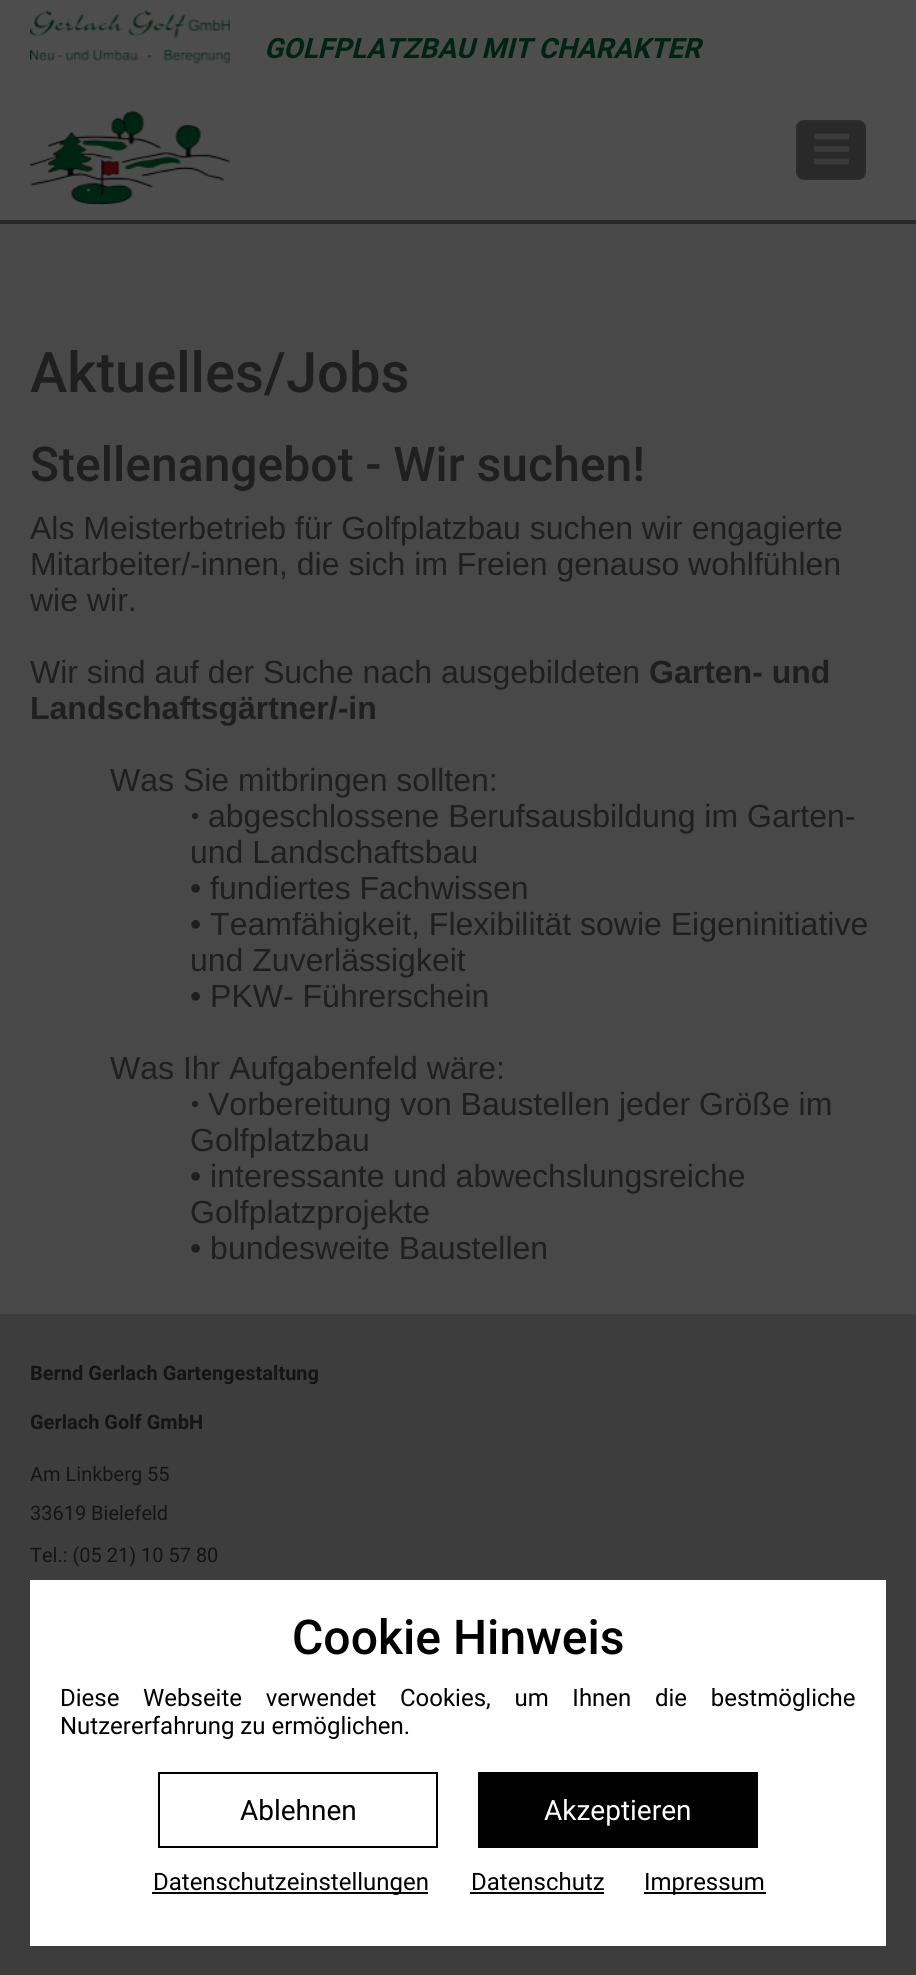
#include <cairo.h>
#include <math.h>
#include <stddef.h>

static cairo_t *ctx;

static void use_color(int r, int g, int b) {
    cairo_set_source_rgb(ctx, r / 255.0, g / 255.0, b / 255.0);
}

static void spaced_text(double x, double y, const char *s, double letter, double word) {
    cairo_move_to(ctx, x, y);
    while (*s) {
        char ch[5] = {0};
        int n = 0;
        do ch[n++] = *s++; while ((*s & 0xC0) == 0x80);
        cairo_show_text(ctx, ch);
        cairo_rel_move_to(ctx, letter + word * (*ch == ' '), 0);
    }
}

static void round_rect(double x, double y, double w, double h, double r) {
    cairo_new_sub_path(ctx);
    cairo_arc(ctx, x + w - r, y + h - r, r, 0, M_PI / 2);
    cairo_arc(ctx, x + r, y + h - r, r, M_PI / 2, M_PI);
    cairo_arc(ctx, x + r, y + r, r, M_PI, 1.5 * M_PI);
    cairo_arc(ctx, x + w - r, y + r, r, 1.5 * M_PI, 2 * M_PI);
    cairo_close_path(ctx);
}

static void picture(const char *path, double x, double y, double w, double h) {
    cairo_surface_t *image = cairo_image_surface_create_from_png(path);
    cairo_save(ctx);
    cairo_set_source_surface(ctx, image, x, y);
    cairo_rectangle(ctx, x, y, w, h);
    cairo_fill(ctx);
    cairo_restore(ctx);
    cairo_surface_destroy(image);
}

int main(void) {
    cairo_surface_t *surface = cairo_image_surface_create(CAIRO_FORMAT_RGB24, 916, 1975);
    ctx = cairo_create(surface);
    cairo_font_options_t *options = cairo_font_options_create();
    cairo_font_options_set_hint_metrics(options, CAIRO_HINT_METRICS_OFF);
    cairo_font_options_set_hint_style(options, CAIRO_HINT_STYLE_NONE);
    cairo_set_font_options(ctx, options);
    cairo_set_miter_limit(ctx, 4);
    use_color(72, 72, 72);
    cairo_paint(ctx);
    use_color(77, 77, 77);
    cairo_rectangle(ctx, 0, 0, 916, 220);
    cairo_fill(ctx);
    use_color(41, 41, 41);
    cairo_rectangle(ctx, 0, 220, 916, 4);
    cairo_fill(ctx);
    picture("img1.png", 30, 10, 200, 195);
    cairo_select_font_face(ctx, "Roboto", CAIRO_FONT_SLANT_ITALIC, CAIRO_FONT_WEIGHT_BOLD);
    cairo_set_font_size(ctx, 28);
    use_color(0, 36, 20);
    cairo_move_to(ctx, 264, 58);
    cairo_show_text(ctx, "GOLFPLATZBAU MIT CHARAKTER");
    use_color(41, 41, 41);
    round_rect(796, 120, 70, 60, 8);
    cairo_fill(ctx);
    round_rect(797, 121, 68, 58, 7);
    cairo_set_source_rgba(ctx, 0.302, 0.302, 0.302, 0.1);
    cairo_stroke(ctx);
    picture("img2.png", 814, 133, 35, 32);
    cairo_select_font_face(ctx, "Roboto Medium", CAIRO_FONT_SLANT_NORMAL, CAIRO_FONT_WEIGHT_NORMAL);
    cairo_set_font_size(ctx, 56);
    use_color(31, 31, 31);
    cairo_move_to(ctx, 30, 392);
    cairo_show_text(ctx, "Aktuelles/Jobs");
    cairo_set_font_size(ctx, 48);
    cairo_move_to(ctx, 30, 481);
    cairo_show_text(ctx, "Stellenangebot - Wir suchen!");
    cairo_select_font_face(ctx, "Liberation Sans", CAIRO_FONT_SLANT_NORMAL, CAIRO_FONT_WEIGHT_NORMAL);
    cairo_set_font_size(ctx, 32);
    cairo_move_to(ctx, 30, 539);
    cairo_show_text(ctx, "Als Meisterbetrieb für Golfplatzbau suchen wir engagierte");
    cairo_move_to(ctx, 30, 575);
    cairo_show_text(ctx, "Mitarbeiter/-innen, die sich im Freien genauso wohlfühlen");
    cairo_move_to(ctx, 30, 611);
    cairo_show_text(ctx, "wie wir.");
    cairo_move_to(ctx, 30, 683);
    cairo_show_text(ctx, "Wir sind auf der Suche nach ausgebildeten");
    cairo_select_font_face(ctx, "Liberation Sans", CAIRO_FONT_SLANT_NORMAL, CAIRO_FONT_WEIGHT_BOLD);
    cairo_move_to(ctx, 649, 683);
    cairo_show_text(ctx, "Garten- und");
    cairo_move_to(ctx, 30, 719);
    cairo_show_text(ctx, "Landschaftsgärtner/-in");
    cairo_select_font_face(ctx, "Liberation Sans", CAIRO_FONT_SLANT_NORMAL, CAIRO_FONT_WEIGHT_NORMAL);
    cairo_move_to(ctx, 110, 791);
    cairo_show_text(ctx, "Was Sie mitbringen sollten:");
    cairo_select_font_face(ctx, "Roboto", CAIRO_FONT_SLANT_NORMAL, CAIRO_FONT_WEIGHT_NORMAL);
    cairo_set_font_size(ctx, 30);
    cairo_move_to(ctx, 190, 827);
    cairo_show_text(ctx, "•");
    cairo_select_font_face(ctx, "Liberation Sans", CAIRO_FONT_SLANT_NORMAL, CAIRO_FONT_WEIGHT_NORMAL);
    cairo_set_font_size(ctx, 32);
    cairo_move_to(ctx, 208, 827);
    cairo_show_text(ctx, "abgeschlossene Berufsausbildung im Garten-");
    cairo_move_to(ctx, 190, 863);
    cairo_show_text(ctx, "und Landschaftsbau");
    cairo_move_to(ctx, 190, 899);
    cairo_show_text(ctx, "• fundiertes Fachwissen");
    cairo_move_to(ctx, 190, 935);
    cairo_show_text(ctx, "• Teamfähigkeit, Flexibilität sowie Eigeninitiative");
    cairo_move_to(ctx, 190, 971);
    cairo_show_text(ctx, "und Zuverlässigkeit");
    cairo_move_to(ctx, 190, 1007);
    cairo_show_text(ctx, "• PKW- Führerschein");
    cairo_move_to(ctx, 110, 1079);
    cairo_show_text(ctx, "Was Ihr Aufgabenfeld wäre:");
    cairo_select_font_face(ctx, "Roboto", CAIRO_FONT_SLANT_NORMAL, CAIRO_FONT_WEIGHT_NORMAL);
    cairo_set_font_size(ctx, 30);
    cairo_move_to(ctx, 190, 1115);
    cairo_show_text(ctx, "•");
    cairo_select_font_face(ctx, "Liberation Sans", CAIRO_FONT_SLANT_NORMAL, CAIRO_FONT_WEIGHT_NORMAL);
    cairo_set_font_size(ctx, 32);
    cairo_move_to(ctx, 208, 1115);
    cairo_show_text(ctx, "Vorbereitung von Baustellen jeder Größe im");
    cairo_move_to(ctx, 190, 1151);
    cairo_show_text(ctx, "Golfplatzbau");
    cairo_move_to(ctx, 190, 1187);
    cairo_show_text(ctx, "• interessante und abwechslungsreiche");
    cairo_move_to(ctx, 190, 1223);
    cairo_show_text(ctx, "Golfplatzprojekte");
    cairo_move_to(ctx, 190, 1259);
    cairo_show_text(ctx, "• bundesweite Baustellen");
    use_color(61, 61, 61);
    cairo_rectangle(ctx, 0, 1314, 916, 661);
    cairo_fill(ctx);
    cairo_select_font_face(ctx, "Roboto", CAIRO_FONT_SLANT_NORMAL, CAIRO_FONT_WEIGHT_BOLD);
    cairo_set_font_size(ctx, 20);
    use_color(20, 20, 20);
    cairo_move_to(ctx, 30, 1380);
    cairo_show_text(ctx, "Bernd Gerlach Gartengestaltung");
    cairo_move_to(ctx, 30, 1429);
    cairo_show_text(ctx, "Gerlach Golf GmbH");
    cairo_select_font_face(ctx, "Roboto", CAIRO_FONT_SLANT_NORMAL, CAIRO_FONT_WEIGHT_NORMAL);
    cairo_move_to(ctx, 30, 1481);
    cairo_show_text(ctx, "Am Linkberg 55");
    cairo_move_to(ctx, 30, 1520);
    cairo_show_text(ctx, "33619 Bielefeld");
    cairo_move_to(ctx, 30, 1562);
    cairo_show_text(ctx, "Tel.: (05 21) 10 57 80");
    use_color(255, 255, 255);
    cairo_rectangle(ctx, 30, 1580, 856, 366);
    cairo_fill(ctx);
    cairo_select_font_face(ctx, "Roboto Medium", CAIRO_FONT_SLANT_NORMAL, CAIRO_FONT_WEIGHT_NORMAL);
    cairo_set_font_size(ctx, 48);
    use_color(0, 0, 0);
    cairo_move_to(ctx, 292, 1654);
    cairo_show_text(ctx, "Cookie Hinweis");
    cairo_select_font_face(ctx, "Roboto", CAIRO_FONT_SLANT_NORMAL, CAIRO_FONT_WEIGHT_NORMAL);
    cairo_set_font_size(ctx, 24);
    spaced_text(60, 1706, "Diese Webseite verwendet Cookies, um Ihnen die bestmögliche", 0, 17.75);
    cairo_move_to(ctx, 60, 1734);
    cairo_show_text(ctx, "Nutzererfahrung zu ermöglichen.");
    cairo_rectangle(ctx, 159, 1773, 278, 74);
    cairo_stroke(ctx);
    cairo_set_font_size(ctx, 28);
    cairo_move_to(ctx, 240, 1820);
    cairo_show_text(ctx, "Ablehnen");
    cairo_rectangle(ctx, 478, 1772, 280, 76);
    cairo_fill(ctx);
    use_color(255, 255, 255);
    cairo_move_to(ctx, 544, 1820);
    cairo_show_text(ctx, "Akzeptieren");
    use_color(0, 0, 0);
    cairo_rectangle(ctx, 152, 1892, 276, 2);
    cairo_fill(ctx);
    cairo_set_font_size(ctx, 24);
    cairo_move_to(ctx, 153, 1890);
    cairo_show_text(ctx, "Datenschutzeinstellungen");
    cairo_move_to(ctx, 471, 1890);
    cairo_show_text(ctx, "Datenschutz");
    cairo_rectangle(ctx, 470, 1892, 134, 2);
    cairo_fill(ctx);
    cairo_rectangle(ctx, 644, 1892, 122, 2);
    cairo_fill(ctx);
    cairo_move_to(ctx, 644, 1890);
    cairo_show_text(ctx, "Impressum");
    cairo_surface_write_to_png(surface, "result.png");
    cairo_font_options_destroy(options);
    cairo_destroy(ctx);
    cairo_surface_destroy(surface);
    return 0;
}
